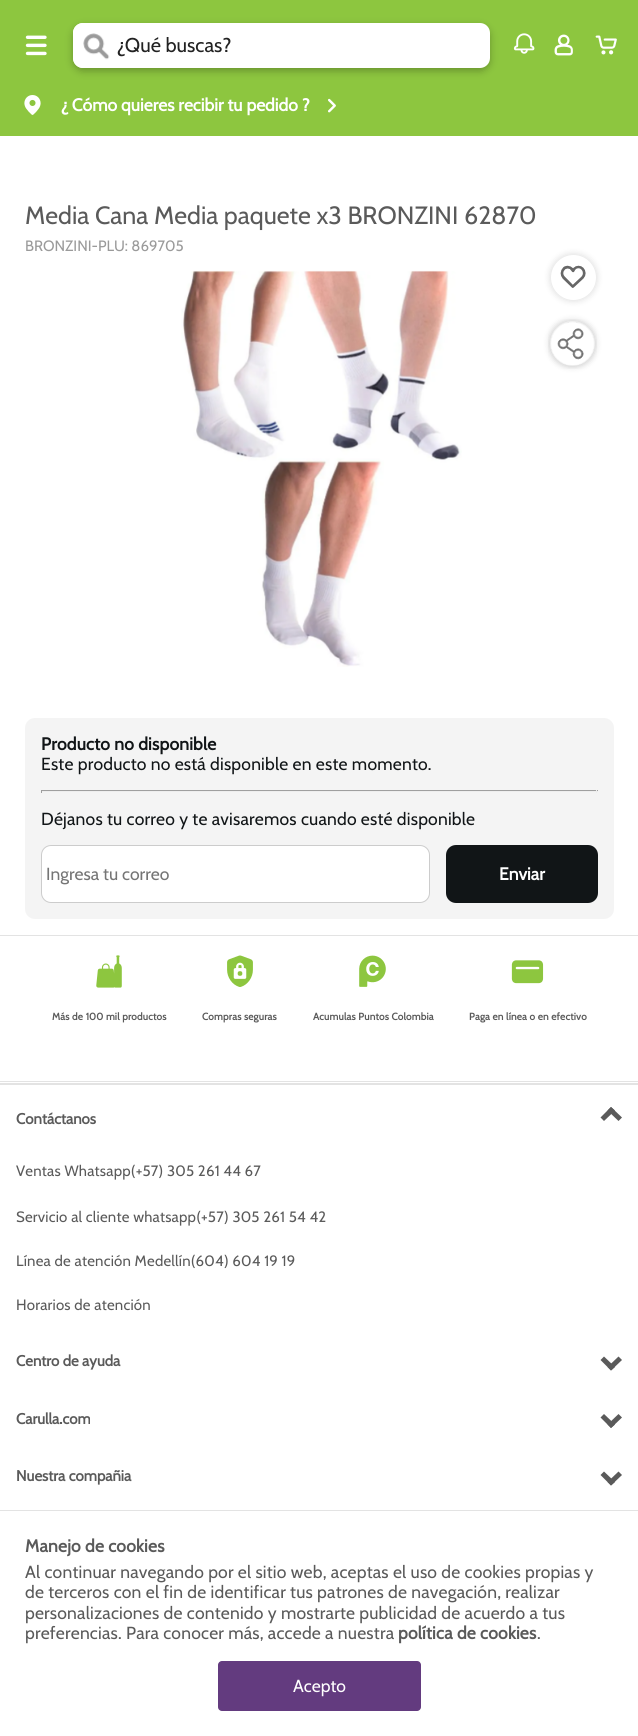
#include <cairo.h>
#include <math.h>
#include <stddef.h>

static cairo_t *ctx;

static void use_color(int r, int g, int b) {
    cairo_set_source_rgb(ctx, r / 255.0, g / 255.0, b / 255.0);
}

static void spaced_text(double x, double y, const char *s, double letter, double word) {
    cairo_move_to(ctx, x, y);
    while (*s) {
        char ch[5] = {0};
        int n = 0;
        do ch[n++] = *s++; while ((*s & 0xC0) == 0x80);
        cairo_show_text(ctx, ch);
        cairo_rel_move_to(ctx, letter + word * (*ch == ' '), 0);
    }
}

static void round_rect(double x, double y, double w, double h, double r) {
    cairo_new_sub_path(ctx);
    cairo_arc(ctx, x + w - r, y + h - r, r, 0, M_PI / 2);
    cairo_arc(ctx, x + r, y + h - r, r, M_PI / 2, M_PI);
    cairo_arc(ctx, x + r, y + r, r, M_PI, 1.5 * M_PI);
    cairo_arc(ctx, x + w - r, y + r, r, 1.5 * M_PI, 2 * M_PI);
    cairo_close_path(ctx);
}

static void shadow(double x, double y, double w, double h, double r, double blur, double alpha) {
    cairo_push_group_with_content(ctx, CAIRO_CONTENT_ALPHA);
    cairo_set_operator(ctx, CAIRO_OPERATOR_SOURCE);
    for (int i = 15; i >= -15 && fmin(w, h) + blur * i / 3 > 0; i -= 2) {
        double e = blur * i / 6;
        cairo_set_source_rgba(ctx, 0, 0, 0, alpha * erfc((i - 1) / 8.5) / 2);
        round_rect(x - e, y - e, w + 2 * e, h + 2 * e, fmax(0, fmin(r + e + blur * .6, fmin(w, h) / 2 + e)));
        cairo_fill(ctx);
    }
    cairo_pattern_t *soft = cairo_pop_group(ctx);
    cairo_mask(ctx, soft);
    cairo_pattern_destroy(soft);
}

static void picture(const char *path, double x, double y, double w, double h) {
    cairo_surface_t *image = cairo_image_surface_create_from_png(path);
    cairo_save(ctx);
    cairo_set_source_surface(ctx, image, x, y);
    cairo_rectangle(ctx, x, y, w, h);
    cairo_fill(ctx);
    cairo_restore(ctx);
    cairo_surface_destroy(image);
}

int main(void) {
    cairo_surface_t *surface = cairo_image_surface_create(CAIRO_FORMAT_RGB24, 638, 1736);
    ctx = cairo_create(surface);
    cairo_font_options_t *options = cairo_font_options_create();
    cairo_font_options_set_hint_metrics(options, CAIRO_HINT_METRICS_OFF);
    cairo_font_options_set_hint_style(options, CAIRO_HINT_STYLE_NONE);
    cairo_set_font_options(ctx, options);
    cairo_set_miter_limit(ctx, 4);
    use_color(255, 255, 255);
    cairo_paint(ctx);
    use_color(141, 198, 63);
    cairo_rectangle(ctx, 0, 0, 638, 136);
    cairo_fill(ctx);
    picture("img1.png", 25, 35, 22, 21);
    use_color(255, 255, 255);
    round_rect(73, 23, 417, 45, 10);
    cairo_fill(ctx);
    cairo_save(ctx);
    cairo_set_fill_rule(ctx, CAIRO_FILL_RULE_EVEN_ODD);
    cairo_new_path(ctx);
    cairo_move_to(ctx, 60, 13);
    cairo_line_to(ctx, 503, 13);
    cairo_line_to(ctx, 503, 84);
    cairo_line_to(ctx, 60, 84);
    cairo_close_path(ctx);
    cairo_move_to(ctx, 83, 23);
    cairo_line_to(ctx, 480, 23);
    cairo_curve_to(ctx, 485.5, 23, 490, 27.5, 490, 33);
    cairo_line_to(ctx, 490, 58);
    cairo_curve_to(ctx, 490, 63.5, 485.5, 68, 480, 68);
    cairo_line_to(ctx, 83, 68);
    cairo_curve_to(ctx, 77.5, 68, 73, 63.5, 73, 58);
    cairo_line_to(ctx, 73, 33);
    cairo_curve_to(ctx, 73, 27.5, 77.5, 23, 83, 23);
    cairo_close_path(ctx);
    cairo_clip(ctx);
    use_color(0, 0, 0);
    shadow(73, 26, 417, 45, 10, 4, 0.26);
    cairo_restore(ctx);
    cairo_new_path(ctx);
    cairo_move_to(ctx, 83, 23);
    cairo_line_to(ctx, 118, 23);
    cairo_line_to(ctx, 118, 68);
    cairo_line_to(ctx, 83, 68);
    cairo_curve_to(ctx, 77.5, 68, 73, 63.5, 73, 58);
    cairo_line_to(ctx, 73, 33);
    cairo_curve_to(ctx, 73, 27.5, 77.5, 23, 83, 23);
    cairo_close_path(ctx);
    cairo_fill(ctx);
    picture("img2.png", 83, 33, 27, 27);
    cairo_select_font_face(ctx, "Cabin", CAIRO_FONT_SLANT_NORMAL, CAIRO_FONT_WEIGHT_NORMAL);
    cairo_set_font_size(ctx, 20);
    use_color(34, 34, 34);
    cairo_move_to(ctx, 117, 52);
    cairo_show_text(ctx, "¿Qué buscas?");
    picture("img3.png", 513, 33, 22, 21);
    picture("img4.png", 554, 34, 19, 22);
    picture("img5.png", 595, 35, 22, 20);
    picture("img6.png", 24, 95, 17, 20);
    cairo_select_font_face(ctx, "Cabin", CAIRO_FONT_SLANT_NORMAL, CAIRO_FONT_WEIGHT_BOLD);
    cairo_set_font_size(ctx, 17.5);
    use_color(255, 255, 255);
    cairo_move_to(ctx, 61, 111);
    cairo_show_text(ctx, "¿ Cómo quieres recibir tu pedido ?");
    picture("img7.png", 328, 98, 8, 15);
    cairo_select_font_face(ctx, "Cabin", CAIRO_FONT_SLANT_NORMAL, CAIRO_FONT_WEIGHT_NORMAL);
    cairo_set_font_size(ctx, 25);
    use_color(90, 90, 90);
    cairo_move_to(ctx, 25, 224);
    cairo_show_text(ctx, "Media Cana Media paquete x3 BRONZINI 62870");
    cairo_set_font_size(ctx, 15);
    use_color(154, 154, 154);
    cairo_move_to(ctx, 25, 251);
    cairo_show_text(ctx, "BRONZINI-PLU: 869705");
    picture("img8.png", 181, 270, 281, 397);
    use_color(0, 0, 0);
    shadow(551, 255, 45, 45, 22.5, 4, 0.16);
    use_color(255, 255, 255);
    cairo_arc(ctx, 573.5, 277.5, 22.5, 0, 2 * M_PI);
    cairo_fill(ctx);
    picture("img9.png", 560, 265, 26, 23);
    use_color(0, 0, 0);
    shadow(550, 321, 45, 45, 22.5, 4, 0.16);
    use_color(255, 255, 255);
    cairo_arc(ctx, 572.5, 343.5, 22.5, 0, 2 * M_PI);
    cairo_fill(ctx);
    picture("img10.png", 548, 319, 49, 50);
    use_color(244, 244, 244);
    round_rect(25, 718, 589, 201, 10);
    cairo_fill(ctx);
    cairo_select_font_face(ctx, "Cabin", CAIRO_FONT_SLANT_NORMAL, CAIRO_FONT_WEIGHT_BOLD);
    cairo_set_font_size(ctx, 17.5);
    use_color(17, 21, 23);
    spaced_text(41, 750, "Producto no disponible", 0.2, 0);
    cairo_select_font_face(ctx, "Cabin", CAIRO_FONT_SLANT_NORMAL, CAIRO_FONT_WEIGHT_NORMAL);
    spaced_text(41, 770, "Este producto no está disponible en este momento.", 0.2, 0);
    use_color(159, 159, 159);
    cairo_rectangle(ctx, 41, 790, 557, 1);
    cairo_fill(ctx);
    use_color(238, 238, 238);
    cairo_rectangle(ctx, 596, 790, 1, 3);
    cairo_fill(ctx);
    cairo_rectangle(ctx, 41, 791, 557, 1);
    cairo_fill(ctx);
    use_color(159, 159, 159);
    cairo_rectangle(ctx, 41, 790, 1, 3);
    cairo_fill(ctx);
    use_color(17, 21, 23);
    spaced_text(41, 825, "Déjanos tu correo y te avisaremos cuando esté disponible", 0.2, 0);
    use_color(255, 255, 255);
    round_rect(41.5, 845.5, 388, 57, 9.5);
    cairo_fill_preserve(ctx);
    use_color(204, 204, 204);
    cairo_set_line_width(ctx, 1);
    cairo_stroke(ctx);
    use_color(117, 117, 117);
    cairo_move_to(ctx, 46, 880);
    cairo_show_text(ctx, "Ingresa tu correo");
    use_color(17, 21, 23);
    round_rect(446, 845, 152, 58, 10);
    cairo_fill(ctx);
    cairo_select_font_face(ctx, "Cabin", CAIRO_FONT_SLANT_NORMAL, CAIRO_FONT_WEIGHT_BOLD);
    use_color(255, 255, 255);
    cairo_move_to(ctx, 499, 880);
    cairo_show_text(ctx, "Enviar");
    use_color(227, 227, 227);
    cairo_rectangle(ctx, 0, 935, 638, 1);
    cairo_fill(ctx);
    cairo_rectangle(ctx, 0, 1081, 638, 1);
    cairo_fill(ctx);
    picture("img11.png", 96, 955, 26, 33);
    cairo_set_font_size(ctx, 10);
    use_color(90, 90, 90);
    spaced_text(52, 1020, "Más de 100 mil productos", 0.2, 0);
    picture("img12.png", 227, 955, 26, 32);
    spaced_text(202, 1020, "Compras seguras", 0.2, 0);
    picture("img13.png", 359, 955, 27, 32);
    spaced_text(313, 1020, "Acumulas Puntos Colombia", 0.2, 0);
    picture("img14.png", 511, 960, 33, 24);
    spaced_text(469, 1020, "Paga en línea o en efectivo", 0.2, 0);
    use_color(227, 227, 227);
    cairo_rectangle(ctx, 0, 1083, 638, 2);
    cairo_fill(ctx);
    cairo_set_font_size(ctx, 15);
    use_color(90, 90, 90);
    cairo_move_to(ctx, 16, 1124);
    cairo_show_text(ctx, "Contáctanos");
    cairo_new_path(ctx);
    cairo_move_to(ctx, 611, 1107);
    cairo_line_to(ctx, 622, 1117.5);
    cairo_line_to(ctx, 618.5, 1121);
    cairo_line_to(ctx, 607.5, 1110.5);
    cairo_close_path(ctx);
    cairo_fill(ctx);
    cairo_new_path(ctx);
    cairo_move_to(ctx, 611, 1107);
    cairo_line_to(ctx, 615, 1110.5);
    cairo_line_to(ctx, 604, 1121);
    cairo_line_to(ctx, 600.5, 1117.5);
    cairo_close_path(ctx);
    cairo_fill(ctx);
    cairo_select_font_face(ctx, "Cabin", CAIRO_FONT_SLANT_NORMAL, CAIRO_FONT_WEIGHT_NORMAL);
    spaced_text(16, 1176, "Ventas Whatsapp(+57) 305 261 44 67", 0.2, 0);
    spaced_text(16, 1222, "Servicio al cliente whatsapp(+57) 305 261 54 42", 0.2, 0);
    spaced_text(16, 1266, "Línea de atención Medellín(604) 604 19 19", 0.2, 0);
    spaced_text(16, 1310, "Horarios de atención", 0.2, 0);
    cairo_select_font_face(ctx, "Cabin", CAIRO_FONT_SLANT_NORMAL, CAIRO_FONT_WEIGHT_BOLD);
    cairo_move_to(ctx, 16, 1366);
    cairo_show_text(ctx, "Centro de ayuda");
    cairo_new_path(ctx);
    cairo_move_to(ctx, 611, 1370.5);
    cairo_line_to(ctx, 600.5, 1360);
    cairo_line_to(ctx, 604, 1356.5);
    cairo_line_to(ctx, 615, 1367);
    cairo_close_path(ctx);
    cairo_fill(ctx);
    cairo_new_path(ctx);
    cairo_move_to(ctx, 611, 1370.5);
    cairo_line_to(ctx, 607.5, 1367);
    cairo_line_to(ctx, 618.5, 1356.5);
    cairo_line_to(ctx, 622, 1360);
    cairo_close_path(ctx);
    cairo_fill(ctx);
    cairo_move_to(ctx, 16, 1424);
    cairo_show_text(ctx, "Carulla.com");
    cairo_new_path(ctx);
    cairo_move_to(ctx, 611, 1428);
    cairo_line_to(ctx, 600.5, 1417.5);
    cairo_line_to(ctx, 604, 1414);
    cairo_line_to(ctx, 615, 1424.5);
    cairo_close_path(ctx);
    cairo_fill(ctx);
    cairo_new_path(ctx);
    cairo_move_to(ctx, 611, 1428);
    cairo_line_to(ctx, 607.5, 1424.5);
    cairo_line_to(ctx, 618.5, 1414);
    cairo_line_to(ctx, 622, 1417.5);
    cairo_close_path(ctx);
    cairo_fill(ctx);
    cairo_move_to(ctx, 16, 1481);
    cairo_show_text(ctx, "Nuestra compañia");
    cairo_new_path(ctx);
    cairo_move_to(ctx, 611, 1485.5);
    cairo_line_to(ctx, 600.5, 1475);
    cairo_line_to(ctx, 604, 1471.5);
    cairo_line_to(ctx, 615, 1482);
    cairo_close_path(ctx);
    cairo_fill(ctx);
    cairo_new_path(ctx);
    cairo_move_to(ctx, 611, 1485.5);
    cairo_line_to(ctx, 607.5, 1482);
    cairo_line_to(ctx, 618.5, 1471.5);
    cairo_line_to(ctx, 622, 1475);
    cairo_close_path(ctx);
    cairo_fill(ctx);
    use_color(227, 227, 227);
    cairo_rectangle(ctx, 0, 1510, 638, 1);
    cairo_fill(ctx);
    cairo_set_font_size(ctx, 17.5);
    use_color(90, 90, 90);
    spaced_text(25, 1552, "Manejo de cookies", 0.2, 0);
    cairo_select_font_face(ctx, "Cabin", CAIRO_FONT_SLANT_NORMAL, CAIRO_FONT_WEIGHT_NORMAL);
    spaced_text(25, 1578, "Al continuar navegando por el sitio web, aceptas el uso de cookies propias y", 0.2, 0);
    spaced_text(25, 1598, "de terceros con el fin de identificar tus patrones de navegación, realizar", 0.2, 0);
    spaced_text(25, 1619, "personalizaciones de contenido y mostrarte publicidad de acuerdo a tus", 0.2, 0);
    spaced_text(25, 1639, "preferencias. Para conocer más, accede a nuestra", 0.2, 0);
    cairo_select_font_face(ctx, "Cabin", CAIRO_FONT_SLANT_NORMAL, CAIRO_FONT_WEIGHT_BOLD);
    spaced_text(398, 1639, "política de cookies", 0.2, 0);
    cairo_select_font_face(ctx, "Cabin", CAIRO_FONT_SLANT_NORMAL, CAIRO_FONT_WEIGHT_NORMAL);
    spaced_text(537, 1639, ".", 0.2, 0);
    use_color(99, 59, 127);
    round_rect(218, 1661, 203, 50, 4);
    cairo_fill(ctx);
    use_color(255, 255, 255);
    cairo_move_to(ctx, 293, 1692);
    cairo_show_text(ctx, "Acepto");
    cairo_surface_write_to_png(surface, "result.png");
    cairo_font_options_destroy(options);
    cairo_destroy(ctx);
    cairo_surface_destroy(surface);
    return 0;
}
